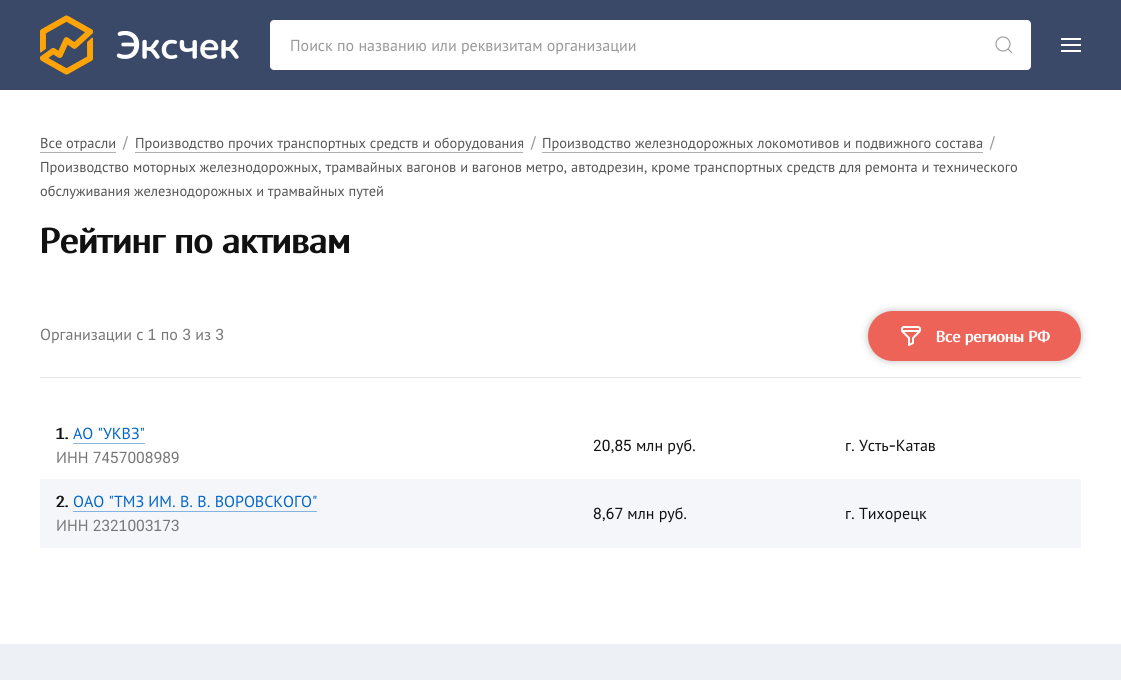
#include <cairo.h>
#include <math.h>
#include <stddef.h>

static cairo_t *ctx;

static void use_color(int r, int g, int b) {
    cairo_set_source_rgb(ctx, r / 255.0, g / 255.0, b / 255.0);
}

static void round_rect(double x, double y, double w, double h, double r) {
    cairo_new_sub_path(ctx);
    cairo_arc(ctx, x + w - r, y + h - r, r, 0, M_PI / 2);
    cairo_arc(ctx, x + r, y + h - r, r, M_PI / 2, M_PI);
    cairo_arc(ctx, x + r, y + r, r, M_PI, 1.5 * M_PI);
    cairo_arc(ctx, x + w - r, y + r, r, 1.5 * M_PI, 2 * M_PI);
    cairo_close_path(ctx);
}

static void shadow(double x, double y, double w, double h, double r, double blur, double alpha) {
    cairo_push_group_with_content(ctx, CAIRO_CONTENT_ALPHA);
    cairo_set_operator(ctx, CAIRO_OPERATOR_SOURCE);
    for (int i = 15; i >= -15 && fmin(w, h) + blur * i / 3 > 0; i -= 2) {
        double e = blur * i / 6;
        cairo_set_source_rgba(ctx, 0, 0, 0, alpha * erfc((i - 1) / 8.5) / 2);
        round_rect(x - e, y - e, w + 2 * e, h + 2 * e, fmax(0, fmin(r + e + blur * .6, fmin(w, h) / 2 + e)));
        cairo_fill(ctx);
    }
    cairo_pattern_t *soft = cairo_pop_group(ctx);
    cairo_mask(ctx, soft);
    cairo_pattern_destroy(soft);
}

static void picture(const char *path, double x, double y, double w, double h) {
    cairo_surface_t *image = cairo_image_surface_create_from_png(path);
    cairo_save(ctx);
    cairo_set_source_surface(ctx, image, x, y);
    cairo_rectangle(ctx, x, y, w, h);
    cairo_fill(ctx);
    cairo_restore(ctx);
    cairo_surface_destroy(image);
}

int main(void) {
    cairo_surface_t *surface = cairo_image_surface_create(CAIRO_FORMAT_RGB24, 1121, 680);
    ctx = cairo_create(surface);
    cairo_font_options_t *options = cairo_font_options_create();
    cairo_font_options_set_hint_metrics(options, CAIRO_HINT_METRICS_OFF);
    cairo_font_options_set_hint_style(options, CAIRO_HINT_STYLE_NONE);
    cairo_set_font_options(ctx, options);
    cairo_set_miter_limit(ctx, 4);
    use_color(255, 255, 255);
    cairo_paint(ctx);
    use_color(57, 73, 103);
    cairo_rectangle(ctx, 0, 0, 1121, 90);
    cairo_fill(ctx);
    picture("img1.png", 40, 15, 199, 60);
    use_color(255, 255, 255);
    round_rect(270, 20, 761, 50, 4);
    cairo_fill(ctx);
    cairo_select_font_face(ctx, "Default", CAIRO_FONT_SLANT_NORMAL, CAIRO_FONT_WEIGHT_NORMAL);
    cairo_set_font_size(ctx, 16);
    use_color(153, 153, 153);
    cairo_move_to(ctx, 290, 51);
    cairo_show_text(ctx, "Поиск по названию или реквизитам организации");
    cairo_new_path(ctx);
    cairo_arc(ctx, 1003, 44, 7, 0, 2 * M_PI);
    cairo_set_line_width(ctx, 1.1);
    cairo_stroke(ctx);
    cairo_new_path(ctx);
    cairo_move_to(ctx, 1008, 49);
    cairo_line_to(ctx, 1012, 53);
    cairo_close_path(ctx);
    cairo_stroke(ctx);
    use_color(255, 255, 255);
    cairo_rectangle(ctx, 1061, 44, 20, 2);
    cairo_fill(ctx);
    cairo_rectangle(ctx, 1061, 38, 20, 2);
    cairo_fill(ctx);
    cairo_rectangle(ctx, 1061, 50, 20, 2);
    cairo_fill(ctx);
    cairo_set_font_size(ctx, 14.4);
    use_color(153, 153, 153);
    cairo_move_to(ctx, 990, 148);
    cairo_show_text(ctx, "/");
    use_color(85, 85, 85);
    cairo_move_to(ctx, 40, 172);
    cairo_show_text(ctx, "Производство моторных железнодорожных, трамвайных вагонов и вагонов метро, автодрезин, кроме транспортных средств для ремонта и технического");
    cairo_move_to(ctx, 40, 196);
    cairo_show_text(ctx, "обслуживания железнодорожных и трамвайных путей");
    cairo_move_to(ctx, 40, 148);
    cairo_show_text(ctx, "Все отрасли");
    use_color(176, 176, 176);
    cairo_rectangle(ctx, 40, 152, 76, 1);
    cairo_fill(ctx);
    use_color(153, 153, 153);
    cairo_move_to(ctx, 123, 148);
    cairo_show_text(ctx, "/");
    use_color(85, 85, 85);
    cairo_move_to(ctx, 135, 148);
    cairo_show_text(ctx, "Производство прочих транспортных средств и оборудования");
    use_color(176, 176, 176);
    cairo_rectangle(ctx, 135, 152, 388, 1);
    cairo_fill(ctx);
    use_color(153, 153, 153);
    cairo_move_to(ctx, 531, 148);
    cairo_show_text(ctx, "/");
    use_color(85, 85, 85);
    cairo_move_to(ctx, 542, 148);
    cairo_show_text(ctx, "Производство железнодорожных локомотивов и подвижного состава");
    use_color(176, 176, 176);
    cairo_rectangle(ctx, 542, 152, 441, 1);
    cairo_fill(ctx);
    cairo_select_font_face(ctx, "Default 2", CAIRO_FONT_SLANT_NORMAL, CAIRO_FONT_WEIGHT_NORMAL);
    cairo_set_font_size(ctx, 36);
    use_color(17, 17, 17);
    cairo_move_to(ctx, 40, 253);
    cairo_show_text(ctx, "Рейтинг по активам");
    use_color(229, 229, 229);
    cairo_rectangle(ctx, 40, 377, 1041, 1);
    cairo_fill(ctx);
    cairo_select_font_face(ctx, "Default", CAIRO_FONT_SLANT_NORMAL, CAIRO_FONT_WEIGHT_NORMAL);
    cairo_set_font_size(ctx, 16);
    use_color(119, 119, 119);
    cairo_move_to(ctx, 40, 340);
    cairo_show_text(ctx, "Организации с 1 по 3 из 3");
    use_color(0, 0, 0);
    shadow(868, 311, 213, 50, 25, 4, 0.25);
    use_color(238, 99, 88);
    round_rect(868, 311, 213, 50, 25);
    cairo_fill(ctx);
    picture("img2.png", 901, 326, 20, 20);
    cairo_select_font_face(ctx, "Default 2", CAIRO_FONT_SLANT_NORMAL, CAIRO_FONT_WEIGHT_NORMAL);
    use_color(255, 255, 255);
    cairo_move_to(ctx, 936, 342);
    cairo_show_text(ctx, "Все регионы РФ");
    use_color(17, 17, 17);
    cairo_move_to(ctx, 56, 439);
    cairo_show_text(ctx, "1.");
    cairo_select_font_face(ctx, "Default", CAIRO_FONT_SLANT_NORMAL, CAIRO_FONT_WEIGHT_NORMAL);
    use_color(4, 102, 200);
    cairo_move_to(ctx, 73, 439);
    cairo_show_text(ctx, "АО \"УКВЗ\"");
    use_color(138, 184, 229);
    cairo_rectangle(ctx, 73, 443, 72, 1);
    cairo_fill(ctx);
    use_color(119, 119, 119);
    cairo_move_to(ctx, 56, 463);
    cairo_show_text(ctx, "ИНН 7457008989");
    use_color(17, 17, 17);
    cairo_move_to(ctx, 593, 451);
    cairo_show_text(ctx, "20,85 млн руб.");
    cairo_move_to(ctx, 845, 451);
    cairo_show_text(ctx, "г. Усть-Катав");
    use_color(244, 246, 249);
    cairo_rectangle(ctx, 40, 479, 1041, 69);
    cairo_fill(ctx);
    cairo_select_font_face(ctx, "Default 2", CAIRO_FONT_SLANT_NORMAL, CAIRO_FONT_WEIGHT_NORMAL);
    use_color(17, 17, 17);
    cairo_move_to(ctx, 56, 507);
    cairo_show_text(ctx, "2.");
    cairo_select_font_face(ctx, "Default", CAIRO_FONT_SLANT_NORMAL, CAIRO_FONT_WEIGHT_NORMAL);
    use_color(4, 102, 200);
    cairo_move_to(ctx, 73, 507);
    cairo_show_text(ctx, "ОАО \"ТМЗ ИМ. В. В. ВОРОВСКОГО\"");
    use_color(132, 179, 226);
    cairo_rectangle(ctx, 73, 511, 244, 1);
    cairo_fill(ctx);
    use_color(119, 119, 119);
    cairo_move_to(ctx, 56, 531);
    cairo_show_text(ctx, "ИНН 2321003173");
    use_color(17, 17, 17);
    cairo_move_to(ctx, 593, 519);
    cairo_show_text(ctx, "8,67 млн руб.");
    cairo_move_to(ctx, 845, 519);
    cairo_show_text(ctx, "г. Тихорецк");
    use_color(237, 240, 245);
    cairo_rectangle(ctx, 0, 644, 1121, 36);
    cairo_fill(ctx);
    cairo_surface_write_to_png(surface, "result.png");
    cairo_font_options_destroy(options);
    cairo_destroy(ctx);
    cairo_surface_destroy(surface);
    return 0;
}
